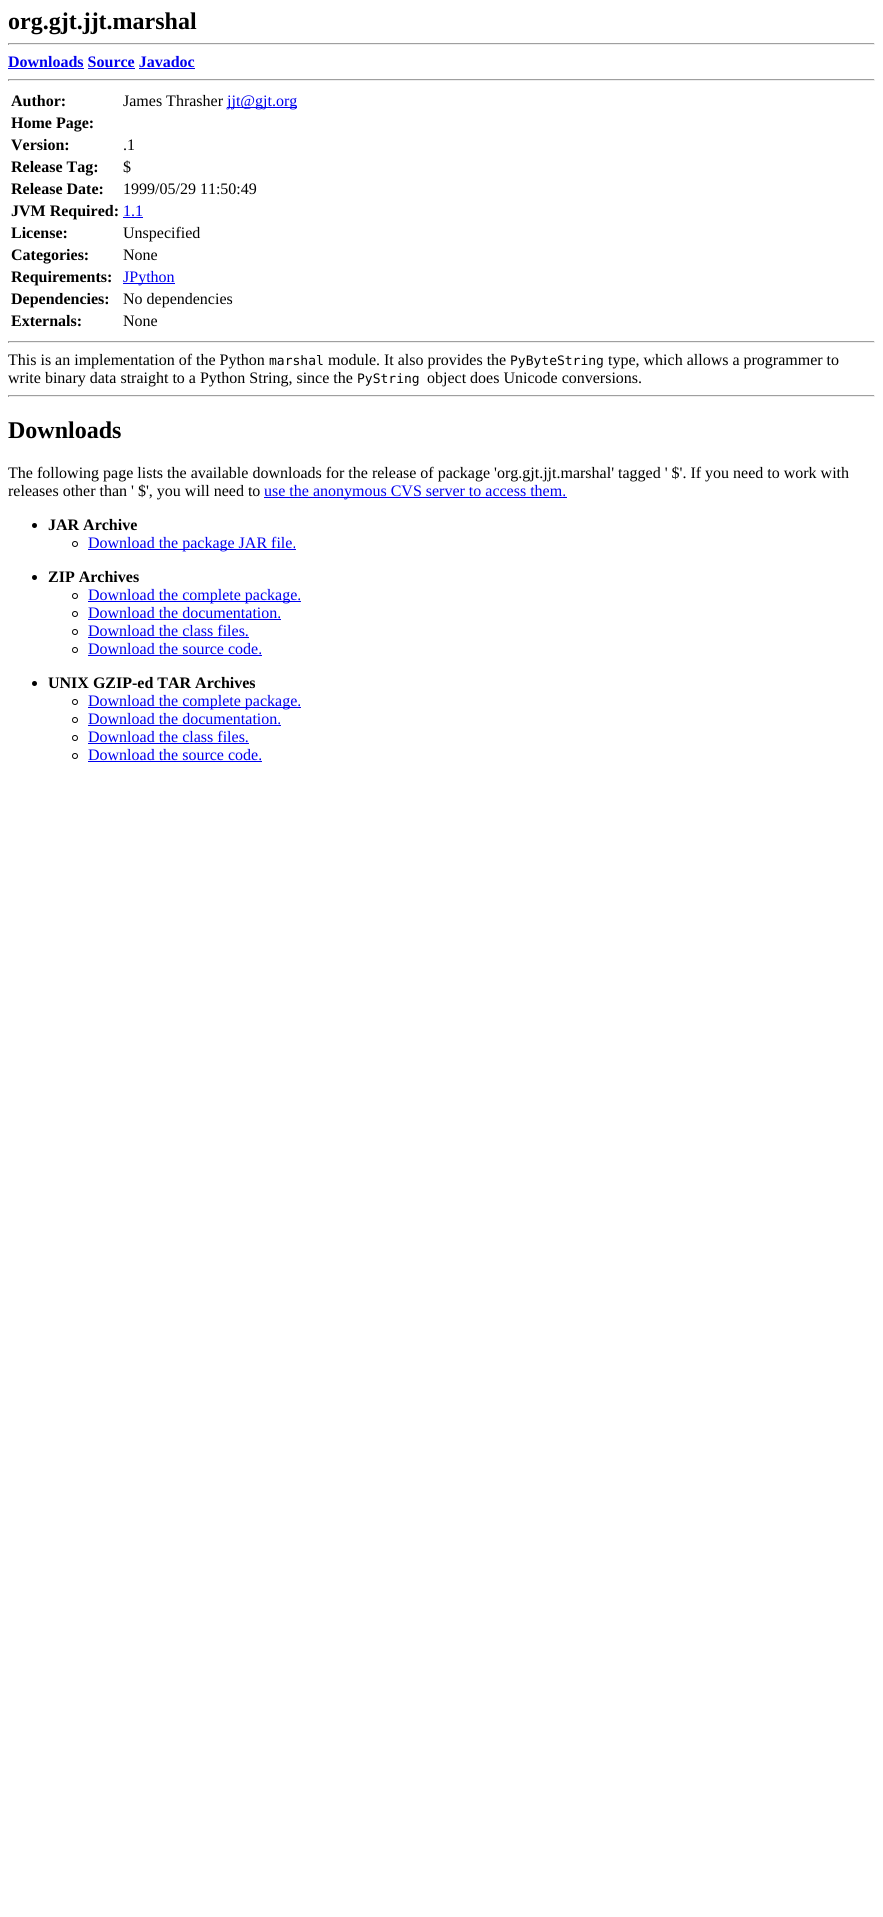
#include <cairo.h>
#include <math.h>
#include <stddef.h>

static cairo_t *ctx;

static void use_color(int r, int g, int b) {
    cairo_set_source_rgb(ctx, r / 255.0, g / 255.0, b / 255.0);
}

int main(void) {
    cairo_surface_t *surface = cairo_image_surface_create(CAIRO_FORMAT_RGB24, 883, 1917);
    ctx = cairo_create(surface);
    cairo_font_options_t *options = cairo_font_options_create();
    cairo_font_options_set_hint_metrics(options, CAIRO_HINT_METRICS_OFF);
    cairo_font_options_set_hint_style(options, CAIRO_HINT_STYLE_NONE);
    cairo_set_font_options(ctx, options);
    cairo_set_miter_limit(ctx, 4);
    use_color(255, 255, 255);
    cairo_paint(ctx);
    cairo_select_font_face(ctx, "Liberation Serif", CAIRO_FONT_SLANT_NORMAL, CAIRO_FONT_WEIGHT_BOLD);
    cairo_set_font_size(ctx, 24);
    use_color(0, 0, 0);
    cairo_move_to(ctx, 8, 29);
    cairo_show_text(ctx, "org.gjt.jjt.marshal");
    use_color(159, 159, 159);
    cairo_rectangle(ctx, 8, 43, 867, 1);
    cairo_fill(ctx);
    use_color(238, 238, 238);
    cairo_rectangle(ctx, 874, 43, 1, 2);
    cairo_fill(ctx);
    cairo_rectangle(ctx, 8, 44, 867, 1);
    cairo_fill(ctx);
    use_color(159, 159, 159);
    cairo_rectangle(ctx, 8, 43, 1, 2);
    cairo_fill(ctx);
    cairo_set_font_size(ctx, 16);
    use_color(0, 0, 238);
    cairo_move_to(ctx, 8, 67);
    cairo_show_text(ctx, "Downloads Source Javadoc");
    cairo_rectangle(ctx, 8, 68, 76, 1);
    cairo_fill(ctx);
    cairo_rectangle(ctx, 88, 68, 47, 1);
    cairo_fill(ctx);
    cairo_rectangle(ctx, 139, 68, 56, 1);
    cairo_fill(ctx);
    use_color(159, 159, 159);
    cairo_rectangle(ctx, 8, 79, 867, 1);
    cairo_fill(ctx);
    use_color(238, 238, 238);
    cairo_rectangle(ctx, 874, 79, 1, 2);
    cairo_fill(ctx);
    cairo_rectangle(ctx, 8, 80, 867, 1);
    cairo_fill(ctx);
    use_color(159, 159, 159);
    cairo_rectangle(ctx, 8, 79, 1, 2);
    cairo_fill(ctx);
    use_color(0, 0, 0);
    cairo_move_to(ctx, 11, 106);
    cairo_show_text(ctx, "Author:");
    cairo_select_font_face(ctx, "Liberation Serif", CAIRO_FONT_SLANT_NORMAL, CAIRO_FONT_WEIGHT_NORMAL);
    cairo_move_to(ctx, 123, 106);
    cairo_show_text(ctx, "James Thrasher");
    use_color(0, 0, 238);
    cairo_rectangle(ctx, 227, 107, 70, 1);
    cairo_fill(ctx);
    cairo_move_to(ctx, 227, 106);
    cairo_show_text(ctx, "jjt@gjt.org");
    cairo_select_font_face(ctx, "Liberation Serif", CAIRO_FONT_SLANT_NORMAL, CAIRO_FONT_WEIGHT_BOLD);
    use_color(0, 0, 0);
    cairo_move_to(ctx, 11, 128);
    cairo_show_text(ctx, "Home Page:");
    cairo_move_to(ctx, 11, 150);
    cairo_show_text(ctx, "Version:");
    cairo_select_font_face(ctx, "Liberation Serif", CAIRO_FONT_SLANT_NORMAL, CAIRO_FONT_WEIGHT_NORMAL);
    cairo_move_to(ctx, 123, 150);
    cairo_show_text(ctx, ".1");
    cairo_select_font_face(ctx, "Liberation Serif", CAIRO_FONT_SLANT_NORMAL, CAIRO_FONT_WEIGHT_BOLD);
    cairo_move_to(ctx, 11, 172);
    cairo_show_text(ctx, "Release Tag:");
    cairo_select_font_face(ctx, "Liberation Serif", CAIRO_FONT_SLANT_NORMAL, CAIRO_FONT_WEIGHT_NORMAL);
    cairo_move_to(ctx, 123, 172);
    cairo_show_text(ctx, "$");
    cairo_select_font_face(ctx, "Liberation Serif", CAIRO_FONT_SLANT_NORMAL, CAIRO_FONT_WEIGHT_BOLD);
    cairo_move_to(ctx, 11, 194);
    cairo_show_text(ctx, "Release Date:");
    cairo_select_font_face(ctx, "Liberation Serif", CAIRO_FONT_SLANT_NORMAL, CAIRO_FONT_WEIGHT_NORMAL);
    cairo_move_to(ctx, 123, 194);
    cairo_show_text(ctx, "1999/05/29 11:50:49");
    cairo_select_font_face(ctx, "Liberation Serif", CAIRO_FONT_SLANT_NORMAL, CAIRO_FONT_WEIGHT_BOLD);
    cairo_move_to(ctx, 11, 216);
    cairo_show_text(ctx, "JVM Required:");
    cairo_select_font_face(ctx, "Liberation Serif", CAIRO_FONT_SLANT_NORMAL, CAIRO_FONT_WEIGHT_NORMAL);
    use_color(0, 0, 238);
    cairo_move_to(ctx, 123, 216);
    cairo_show_text(ctx, "1.1");
    cairo_rectangle(ctx, 123, 217, 20, 1);
    cairo_fill(ctx);
    cairo_select_font_face(ctx, "Liberation Serif", CAIRO_FONT_SLANT_NORMAL, CAIRO_FONT_WEIGHT_BOLD);
    use_color(0, 0, 0);
    cairo_move_to(ctx, 11, 238);
    cairo_show_text(ctx, "License:");
    cairo_select_font_face(ctx, "Liberation Serif", CAIRO_FONT_SLANT_NORMAL, CAIRO_FONT_WEIGHT_NORMAL);
    cairo_move_to(ctx, 123, 238);
    cairo_show_text(ctx, "Unspecified");
    cairo_select_font_face(ctx, "Liberation Serif", CAIRO_FONT_SLANT_NORMAL, CAIRO_FONT_WEIGHT_BOLD);
    cairo_move_to(ctx, 11, 260);
    cairo_show_text(ctx, "Categories:");
    cairo_select_font_face(ctx, "Liberation Serif", CAIRO_FONT_SLANT_NORMAL, CAIRO_FONT_WEIGHT_NORMAL);
    cairo_move_to(ctx, 123, 260);
    cairo_show_text(ctx, "None");
    cairo_select_font_face(ctx, "Liberation Serif", CAIRO_FONT_SLANT_NORMAL, CAIRO_FONT_WEIGHT_BOLD);
    cairo_move_to(ctx, 11, 282);
    cairo_show_text(ctx, "Requirements:");
    use_color(0, 0, 238);
    cairo_rectangle(ctx, 123, 283, 52, 1);
    cairo_fill(ctx);
    cairo_select_font_face(ctx, "Liberation Serif", CAIRO_FONT_SLANT_NORMAL, CAIRO_FONT_WEIGHT_NORMAL);
    cairo_move_to(ctx, 123, 282);
    cairo_show_text(ctx, "JPython");
    cairo_select_font_face(ctx, "Liberation Serif", CAIRO_FONT_SLANT_NORMAL, CAIRO_FONT_WEIGHT_BOLD);
    use_color(0, 0, 0);
    cairo_move_to(ctx, 11, 304);
    cairo_show_text(ctx, "Dependencies:");
    cairo_select_font_face(ctx, "Liberation Serif", CAIRO_FONT_SLANT_NORMAL, CAIRO_FONT_WEIGHT_NORMAL);
    cairo_move_to(ctx, 123, 304);
    cairo_show_text(ctx, "No dependencies");
    cairo_select_font_face(ctx, "Liberation Serif", CAIRO_FONT_SLANT_NORMAL, CAIRO_FONT_WEIGHT_BOLD);
    cairo_move_to(ctx, 11, 326);
    cairo_show_text(ctx, "Externals:");
    cairo_select_font_face(ctx, "Liberation Serif", CAIRO_FONT_SLANT_NORMAL, CAIRO_FONT_WEIGHT_NORMAL);
    cairo_move_to(ctx, 123, 326);
    cairo_show_text(ctx, "None");
    use_color(159, 159, 159);
    cairo_rectangle(ctx, 8, 341, 867, 1);
    cairo_fill(ctx);
    use_color(238, 238, 238);
    cairo_rectangle(ctx, 874, 341, 1, 2);
    cairo_fill(ctx);
    cairo_rectangle(ctx, 8, 342, 867, 1);
    cairo_fill(ctx);
    use_color(159, 159, 159);
    cairo_rectangle(ctx, 8, 341, 1, 2);
    cairo_fill(ctx);
    use_color(0, 0, 0);
    cairo_move_to(ctx, 8, 365);
    cairo_show_text(ctx, "This is an implementation of the Python");
    cairo_select_font_face(ctx, "DejaVu Sans Mono", CAIRO_FONT_SLANT_NORMAL, CAIRO_FONT_WEIGHT_NORMAL);
    cairo_set_font_size(ctx, 13);
    cairo_move_to(ctx, 269, 365);
    cairo_show_text(ctx, "marshal");
    cairo_select_font_face(ctx, "Liberation Serif", CAIRO_FONT_SLANT_NORMAL, CAIRO_FONT_WEIGHT_NORMAL);
    cairo_set_font_size(ctx, 16);
    cairo_move_to(ctx, 328, 365);
    cairo_show_text(ctx, "module. It also provides the");
    cairo_select_font_face(ctx, "DejaVu Sans Mono", CAIRO_FONT_SLANT_NORMAL, CAIRO_FONT_WEIGHT_NORMAL);
    cairo_set_font_size(ctx, 13);
    cairo_move_to(ctx, 510, 365);
    cairo_show_text(ctx, "PyByteString");
    cairo_select_font_face(ctx, "Liberation Serif", CAIRO_FONT_SLANT_NORMAL, CAIRO_FONT_WEIGHT_NORMAL);
    cairo_set_font_size(ctx, 16);
    cairo_move_to(ctx, 608, 365);
    cairo_show_text(ctx, "type, which allows a programmer to");
    cairo_move_to(ctx, 8, 383);
    cairo_show_text(ctx, "write binary data straight to a Python String, since the");
    cairo_select_font_face(ctx, "DejaVu Sans Mono", CAIRO_FONT_SLANT_NORMAL, CAIRO_FONT_WEIGHT_NORMAL);
    cairo_set_font_size(ctx, 13);
    cairo_move_to(ctx, 357, 383);
    cairo_show_text(ctx, "PyString");
    cairo_select_font_face(ctx, "Liberation Serif", CAIRO_FONT_SLANT_NORMAL, CAIRO_FONT_WEIGHT_NORMAL);
    cairo_set_font_size(ctx, 16);
    cairo_move_to(ctx, 427, 383);
    cairo_show_text(ctx, "object does Unicode conversions.");
    use_color(159, 159, 159);
    cairo_rectangle(ctx, 8, 395, 867, 1);
    cairo_fill(ctx);
    use_color(238, 238, 238);
    cairo_rectangle(ctx, 874, 395, 1, 2);
    cairo_fill(ctx);
    cairo_rectangle(ctx, 8, 396, 867, 1);
    cairo_fill(ctx);
    use_color(159, 159, 159);
    cairo_rectangle(ctx, 8, 395, 1, 2);
    cairo_fill(ctx);
    cairo_select_font_face(ctx, "Liberation Serif", CAIRO_FONT_SLANT_NORMAL, CAIRO_FONT_WEIGHT_BOLD);
    cairo_set_font_size(ctx, 24);
    use_color(0, 0, 0);
    cairo_move_to(ctx, 8, 438);
    cairo_show_text(ctx, "Downloads");
    cairo_select_font_face(ctx, "Liberation Serif", CAIRO_FONT_SLANT_NORMAL, CAIRO_FONT_WEIGHT_NORMAL);
    cairo_set_font_size(ctx, 16);
    cairo_move_to(ctx, 8, 478);
    cairo_show_text(ctx, "The following page lists the available downloads for the release of package 'org.gjt.jjt.marshal' tagged ' $'. If you need to work with");
    cairo_move_to(ctx, 8, 496);
    cairo_show_text(ctx, "releases other than ' $', you will need to");
    use_color(0, 0, 238);
    cairo_rectangle(ctx, 264, 497, 303, 1);
    cairo_fill(ctx);
    cairo_move_to(ctx, 264, 496);
    cairo_show_text(ctx, "use the anonymous CVS server to access them.");
    use_color(0, 0, 0);
    cairo_new_path(ctx);
    cairo_arc(ctx, 34.5, 525.5, 2.5, 0, 2 * M_PI);
    cairo_fill(ctx);
    cairo_select_font_face(ctx, "Liberation Serif", CAIRO_FONT_SLANT_NORMAL, CAIRO_FONT_WEIGHT_BOLD);
    cairo_move_to(ctx, 48, 530);
    cairo_show_text(ctx, "JAR Archive");
    cairo_new_path(ctx);
    cairo_arc(ctx, 75, 544, 2.5, 0, 2 * M_PI);
    cairo_set_line_width(ctx, 1);
    cairo_stroke(ctx);
    use_color(0, 0, 238);
    cairo_rectangle(ctx, 88, 549, 208, 1);
    cairo_fill(ctx);
    cairo_select_font_face(ctx, "Liberation Serif", CAIRO_FONT_SLANT_NORMAL, CAIRO_FONT_WEIGHT_NORMAL);
    cairo_move_to(ctx, 88, 548);
    cairo_show_text(ctx, "Download the package JAR file.");
    use_color(0, 0, 0);
    cairo_new_path(ctx);
    cairo_arc(ctx, 34.5, 577.5, 2.5, 0, 2 * M_PI);
    cairo_fill(ctx);
    cairo_select_font_face(ctx, "Liberation Serif", CAIRO_FONT_SLANT_NORMAL, CAIRO_FONT_WEIGHT_BOLD);
    cairo_move_to(ctx, 48, 582);
    cairo_show_text(ctx, "ZIP Archives");
    cairo_new_path(ctx);
    cairo_arc(ctx, 75, 596, 2.5, 0, 2 * M_PI);
    cairo_stroke(ctx);
    use_color(0, 0, 238);
    cairo_rectangle(ctx, 88, 601, 213, 1);
    cairo_fill(ctx);
    cairo_select_font_face(ctx, "Liberation Serif", CAIRO_FONT_SLANT_NORMAL, CAIRO_FONT_WEIGHT_NORMAL);
    cairo_move_to(ctx, 88, 600);
    cairo_show_text(ctx, "Download the complete package.");
    cairo_new_path(ctx);
    cairo_arc(ctx, 75, 614, 2.5, 0, 2 * M_PI);
    use_color(0, 0, 0);
    cairo_stroke(ctx);
    use_color(0, 0, 238);
    cairo_move_to(ctx, 88, 618);
    cairo_show_text(ctx, "Download the documentation.");
    cairo_rectangle(ctx, 88, 619, 193, 1);
    cairo_fill(ctx);
    cairo_arc(ctx, 75, 632, 2.5, 0, 2 * M_PI);
    use_color(0, 0, 0);
    cairo_stroke(ctx);
    use_color(0, 0, 238);
    cairo_move_to(ctx, 88, 636);
    cairo_show_text(ctx, "Download the class files.");
    cairo_rectangle(ctx, 88, 637, 161, 1);
    cairo_fill(ctx);
    cairo_arc(ctx, 75, 650, 2.5, 0, 2 * M_PI);
    use_color(0, 0, 0);
    cairo_stroke(ctx);
    use_color(0, 0, 238);
    cairo_move_to(ctx, 88, 654);
    cairo_show_text(ctx, "Download the source code.");
    cairo_rectangle(ctx, 88, 655, 174, 1);
    cairo_fill(ctx);
    use_color(0, 0, 0);
    cairo_arc(ctx, 34.5, 683.5, 2.5, 0, 2 * M_PI);
    cairo_fill(ctx);
    cairo_select_font_face(ctx, "Liberation Serif", CAIRO_FONT_SLANT_NORMAL, CAIRO_FONT_WEIGHT_BOLD);
    cairo_move_to(ctx, 48, 688);
    cairo_show_text(ctx, "UNIX GZIP-ed TAR Archives");
    cairo_new_path(ctx);
    cairo_arc(ctx, 75, 702, 2.5, 0, 2 * M_PI);
    cairo_stroke(ctx);
    use_color(0, 0, 238);
    cairo_rectangle(ctx, 88, 707, 213, 1);
    cairo_fill(ctx);
    cairo_select_font_face(ctx, "Liberation Serif", CAIRO_FONT_SLANT_NORMAL, CAIRO_FONT_WEIGHT_NORMAL);
    cairo_move_to(ctx, 88, 706);
    cairo_show_text(ctx, "Download the complete package.");
    cairo_new_path(ctx);
    cairo_arc(ctx, 75, 720, 2.5, 0, 2 * M_PI);
    use_color(0, 0, 0);
    cairo_stroke(ctx);
    use_color(0, 0, 238);
    cairo_move_to(ctx, 88, 724);
    cairo_show_text(ctx, "Download the documentation.");
    cairo_rectangle(ctx, 88, 725, 193, 1);
    cairo_fill(ctx);
    cairo_arc(ctx, 75, 738, 2.5, 0, 2 * M_PI);
    use_color(0, 0, 0);
    cairo_stroke(ctx);
    use_color(0, 0, 238);
    cairo_move_to(ctx, 88, 742);
    cairo_show_text(ctx, "Download the class files.");
    cairo_rectangle(ctx, 88, 743, 161, 1);
    cairo_fill(ctx);
    cairo_arc(ctx, 75, 756, 2.5, 0, 2 * M_PI);
    use_color(0, 0, 0);
    cairo_stroke(ctx);
    use_color(0, 0, 238);
    cairo_move_to(ctx, 88, 760);
    cairo_show_text(ctx, "Download the source code.");
    cairo_rectangle(ctx, 88, 761, 174, 1);
    cairo_fill(ctx);
    cairo_surface_write_to_png(surface, "result.png");
    cairo_font_options_destroy(options);
    cairo_destroy(ctx);
    cairo_surface_destroy(surface);
    return 0;
}
